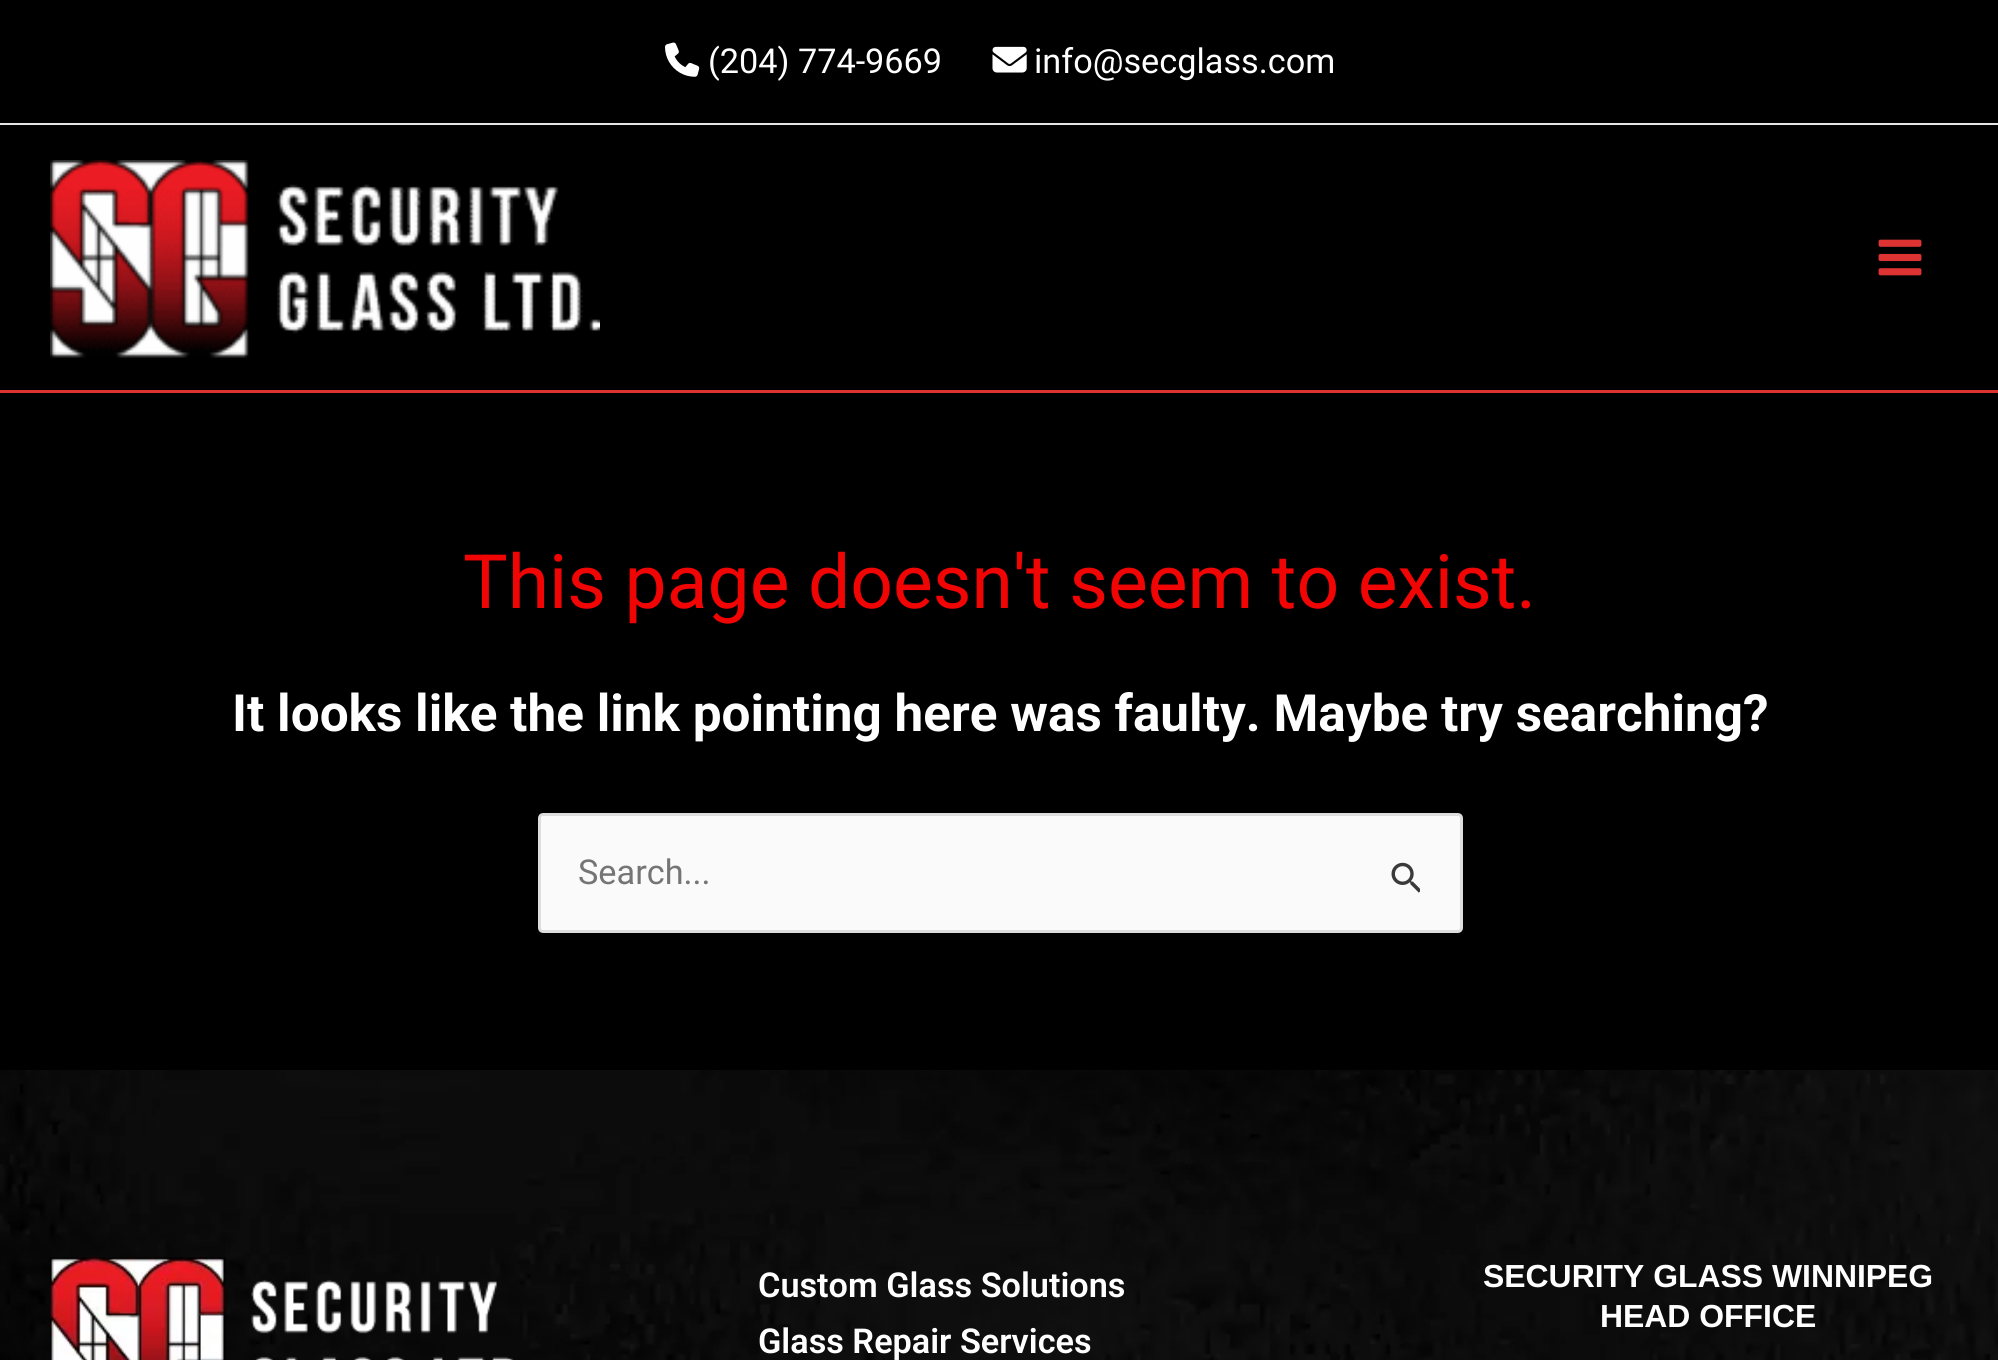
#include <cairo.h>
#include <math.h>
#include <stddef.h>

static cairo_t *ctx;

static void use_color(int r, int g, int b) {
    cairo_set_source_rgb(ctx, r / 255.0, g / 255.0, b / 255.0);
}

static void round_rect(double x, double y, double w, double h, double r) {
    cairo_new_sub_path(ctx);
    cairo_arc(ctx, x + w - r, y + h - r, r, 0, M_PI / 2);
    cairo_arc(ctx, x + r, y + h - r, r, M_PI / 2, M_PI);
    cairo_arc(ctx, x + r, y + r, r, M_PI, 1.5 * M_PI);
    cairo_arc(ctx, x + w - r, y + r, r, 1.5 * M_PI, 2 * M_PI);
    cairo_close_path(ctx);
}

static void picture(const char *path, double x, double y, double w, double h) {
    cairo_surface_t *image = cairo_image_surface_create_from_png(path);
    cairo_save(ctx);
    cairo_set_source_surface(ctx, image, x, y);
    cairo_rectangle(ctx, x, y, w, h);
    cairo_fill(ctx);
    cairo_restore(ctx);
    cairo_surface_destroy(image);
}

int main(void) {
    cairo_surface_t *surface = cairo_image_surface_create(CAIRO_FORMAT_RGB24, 1998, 1360);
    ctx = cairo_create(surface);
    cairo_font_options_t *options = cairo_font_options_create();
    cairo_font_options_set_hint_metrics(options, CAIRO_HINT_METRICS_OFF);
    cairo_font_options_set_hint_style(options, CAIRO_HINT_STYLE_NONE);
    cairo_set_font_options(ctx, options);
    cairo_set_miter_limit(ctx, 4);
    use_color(0, 0, 0);
    cairo_paint(ctx);
    use_color(229, 229, 229);
    cairo_rectangle(ctx, 0, 123, 1998, 2);
    cairo_fill(ctx);
    picture("img1.png", 665, 42, 35, 35);
    cairo_select_font_face(ctx, "Roboto", CAIRO_FONT_SLANT_NORMAL, CAIRO_FONT_WEIGHT_NORMAL);
    cairo_set_font_size(ctx, 34.25);
    use_color(255, 255, 255);
    cairo_move_to(ctx, 708, 73);
    cairo_show_text(ctx, "(204) 774-9669");
    picture("img2.png", 992, 46, 35, 27);
    cairo_move_to(ctx, 1034, 73);
    cairo_show_text(ctx, "info@secglass.com");
    use_color(221, 51, 51);
    cairo_rectangle(ctx, 0, 390, 1998, 3);
    cairo_fill(ctx);
    picture("img3.png", 50, 160, 550, 198);
    picture("img4.png", 1878, 239, 44, 37);
    cairo_set_font_size(ctx, 75);
    use_color(240, 4, 4);
    cairo_move_to(ctx, 463, 608);
    cairo_show_text(ctx, "This page doesn't seem to exist.");
    cairo_select_font_face(ctx, "Roboto", CAIRO_FONT_SLANT_NORMAL, CAIRO_FONT_WEIGHT_BOLD);
    cairo_set_font_size(ctx, 51.3);
    use_color(255, 255, 255);
    cairo_move_to(ctx, 232, 731);
    cairo_show_text(ctx, "It looks like the link pointing here was faulty. Maybe try searching?");
    use_color(250, 250, 250);
    round_rect(539.5, 814.5, 922, 117, 3.5);
    cairo_fill_preserve(ctx);
    use_color(221, 221, 221);
    cairo_set_line_width(ctx, 3);
    cairo_stroke(ctx);
    cairo_select_font_face(ctx, "Roboto", CAIRO_FONT_SLANT_NORMAL, CAIRO_FONT_WEIGHT_NORMAL);
    cairo_set_font_size(ctx, 34.25);
    use_color(117, 117, 117);
    cairo_move_to(ctx, 578, 884);
    cairo_show_text(ctx, "Search...");
    picture("img5.png", 1391, 862, 29, 31);
    picture("img6.png", 0, 1070, 1998, 290);
    picture("img7.png", 50, 1257, 464, 103);
    cairo_select_font_face(ctx, "Roboto SemiBold", CAIRO_FONT_SLANT_NORMAL, CAIRO_FONT_WEIGHT_NORMAL);
    use_color(255, 255, 255);
    cairo_move_to(ctx, 758, 1297);
    cairo_show_text(ctx, "Custom Glass Solutions");
    cairo_move_to(ctx, 758, 1353);
    cairo_show_text(ctx, "Glass Repair Services");
    cairo_select_font_face(ctx, "Liberation Sans", CAIRO_FONT_SLANT_NORMAL, CAIRO_FONT_WEIGHT_BOLD);
    cairo_set_font_size(ctx, 31.9);
    cairo_move_to(ctx, 1483, 1287);
    cairo_show_text(ctx, "SECURITY GLASS WINNIPEG");
    cairo_move_to(ctx, 1600, 1327);
    cairo_show_text(ctx, "HEAD OFFICE");
    cairo_surface_write_to_png(surface, "result.png");
    cairo_font_options_destroy(options);
    cairo_destroy(ctx);
    cairo_surface_destroy(surface);
    return 0;
}
